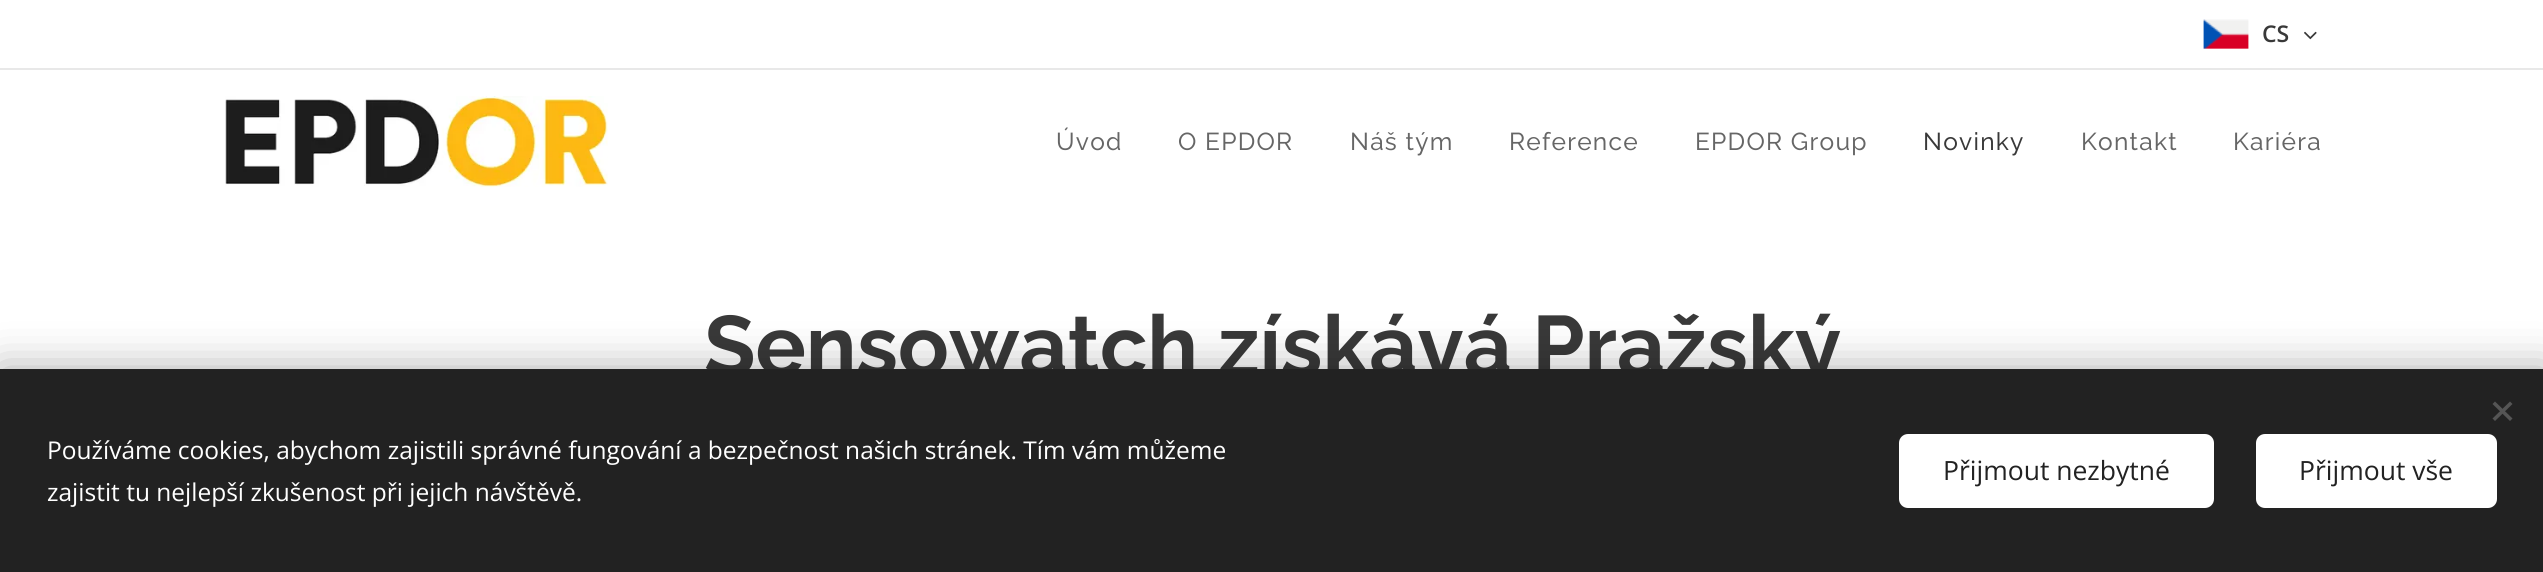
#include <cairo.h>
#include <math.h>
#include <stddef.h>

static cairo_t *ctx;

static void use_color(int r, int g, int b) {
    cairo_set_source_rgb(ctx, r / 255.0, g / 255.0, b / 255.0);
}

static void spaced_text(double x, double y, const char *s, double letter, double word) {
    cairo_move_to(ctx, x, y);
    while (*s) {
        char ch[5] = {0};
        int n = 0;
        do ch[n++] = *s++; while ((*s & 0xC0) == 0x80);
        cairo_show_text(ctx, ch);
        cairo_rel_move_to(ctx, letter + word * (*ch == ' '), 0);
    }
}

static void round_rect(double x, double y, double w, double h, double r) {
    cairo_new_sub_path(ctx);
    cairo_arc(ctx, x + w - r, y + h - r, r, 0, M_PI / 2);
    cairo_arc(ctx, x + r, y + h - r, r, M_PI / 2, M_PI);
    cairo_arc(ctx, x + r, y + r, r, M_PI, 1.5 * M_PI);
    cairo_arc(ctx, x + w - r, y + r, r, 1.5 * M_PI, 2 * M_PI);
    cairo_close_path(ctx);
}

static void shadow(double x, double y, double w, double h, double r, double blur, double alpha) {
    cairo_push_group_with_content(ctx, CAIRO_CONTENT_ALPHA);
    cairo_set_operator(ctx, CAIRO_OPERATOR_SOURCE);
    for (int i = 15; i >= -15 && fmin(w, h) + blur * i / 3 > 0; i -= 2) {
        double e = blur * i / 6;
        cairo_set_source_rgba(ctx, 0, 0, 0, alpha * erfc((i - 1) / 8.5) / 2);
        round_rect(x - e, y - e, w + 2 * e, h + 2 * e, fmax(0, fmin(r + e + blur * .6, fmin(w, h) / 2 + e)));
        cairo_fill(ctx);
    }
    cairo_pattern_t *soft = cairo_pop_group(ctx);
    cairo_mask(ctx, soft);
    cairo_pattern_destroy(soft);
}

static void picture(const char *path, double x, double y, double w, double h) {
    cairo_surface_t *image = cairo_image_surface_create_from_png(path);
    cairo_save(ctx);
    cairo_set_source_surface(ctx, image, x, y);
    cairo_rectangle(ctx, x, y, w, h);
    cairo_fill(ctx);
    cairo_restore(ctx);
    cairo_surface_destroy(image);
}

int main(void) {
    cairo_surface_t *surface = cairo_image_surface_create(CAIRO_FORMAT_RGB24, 2543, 572);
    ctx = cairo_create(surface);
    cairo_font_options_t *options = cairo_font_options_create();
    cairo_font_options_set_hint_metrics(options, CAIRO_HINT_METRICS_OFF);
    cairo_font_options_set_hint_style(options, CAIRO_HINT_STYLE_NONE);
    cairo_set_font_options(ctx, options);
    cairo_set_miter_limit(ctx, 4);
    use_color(255, 255, 255);
    cairo_paint(ctx);
    picture("img1.png", 2203, 19, 46, 30);
    cairo_select_font_face(ctx, "Open Sans SemiBold", CAIRO_FONT_SLANT_NORMAL, CAIRO_FONT_WEIGHT_NORMAL);
    cairo_set_font_size(ctx, 23);
    use_color(57, 57, 57);
    cairo_move_to(ctx, 2262, 42);
    cairo_show_text(ctx, "CS");
    picture("img2.png", 2304, 31, 13, 9);
    use_color(232, 232, 232);
    cairo_rectangle(ctx, 0, 68, 2543, 2);
    cairo_fill(ctx);
    picture("img3.png", 225, 96, 383, 92);
    cairo_select_font_face(ctx, "Raleway", CAIRO_FONT_SLANT_NORMAL, CAIRO_FONT_WEIGHT_NORMAL);
    cairo_set_font_size(ctx, 24.5);
    use_color(102, 102, 102);
    spaced_text(1056, 150, "Úvod", 1.25, 0);
    spaced_text(1178, 150, "O EPDOR", 1.25, 0);
    spaced_text(1350, 150, "Náš tým", 1.25, 0);
    spaced_text(1509, 150, "Reference", 1.25, 0);
    spaced_text(1695, 150, "EPDOR Group", 1.25, 0);
    use_color(57, 57, 57);
    spaced_text(1923, 150, "Novinky", 1.25, 0);
    use_color(102, 102, 102);
    spaced_text(2081, 150, "Kontakt", 1.25, 0);
    spaced_text(2233, 150, "Kariéra", 1.25, 0);
    cairo_select_font_face(ctx, "Raleway", CAIRO_FONT_SLANT_NORMAL, CAIRO_FONT_WEIGHT_BOLD);
    cairo_set_font_size(ctx, 84);
    use_color(57, 57, 57);
    cairo_move_to(ctx, 704, 375);
    cairo_show_text(ctx, "Sensowatch získává Pražský");
    use_color(0, 0, 0);
    shadow(0, 369, 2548, 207, 0, 22, 0.33);
    use_color(34, 34, 34);
    cairo_rectangle(ctx, 0, 369, 2543, 203);
    cairo_fill(ctx);
    use_color(85, 85, 85);
    cairo_new_path(ctx);
    cairo_move_to(ctx, 2492.5, 418.5);
    cairo_line_to(ctx, 2510, 401.5);
    cairo_line_to(ctx, 2512.5, 404);
    cairo_line_to(ctx, 2495, 421);
    cairo_close_path(ctx);
    cairo_fill(ctx);
    cairo_new_path(ctx);
    cairo_move_to(ctx, 2495, 401.5);
    cairo_line_to(ctx, 2512.5, 418.5);
    cairo_line_to(ctx, 2510, 421);
    cairo_line_to(ctx, 2492.5, 404);
    cairo_close_path(ctx);
    cairo_fill(ctx);
    cairo_select_font_face(ctx, "Open Sans", CAIRO_FONT_SLANT_NORMAL, CAIRO_FONT_WEIGHT_NORMAL);
    cairo_set_font_size(ctx, 24.5);
    use_color(255, 255, 255);
    cairo_move_to(ctx, 47, 459);
    cairo_show_text(ctx, "Používáme cookies, abychom zajistili správné fungování a bezpečnost našich stránek. Tím vám můžeme");
    cairo_move_to(ctx, 47, 501);
    cairo_show_text(ctx, "zajistit tu nejlepší zkušenost při jejich návštěvě.");
    round_rect(1899, 434, 315, 74, 9);
    cairo_fill(ctx);
    cairo_set_font_size(ctx, 26.5);
    use_color(34, 34, 34);
    cairo_move_to(ctx, 1943, 480);
    cairo_show_text(ctx, "Přijmout nezbytné");
    use_color(255, 255, 255);
    round_rect(2256, 434, 241, 74, 9);
    cairo_fill(ctx);
    use_color(34, 34, 34);
    cairo_move_to(ctx, 2299, 480);
    cairo_show_text(ctx, "Přijmout vše");
    cairo_surface_write_to_png(surface, "result.png");
    cairo_font_options_destroy(options);
    cairo_destroy(ctx);
    cairo_surface_destroy(surface);
    return 0;
}
